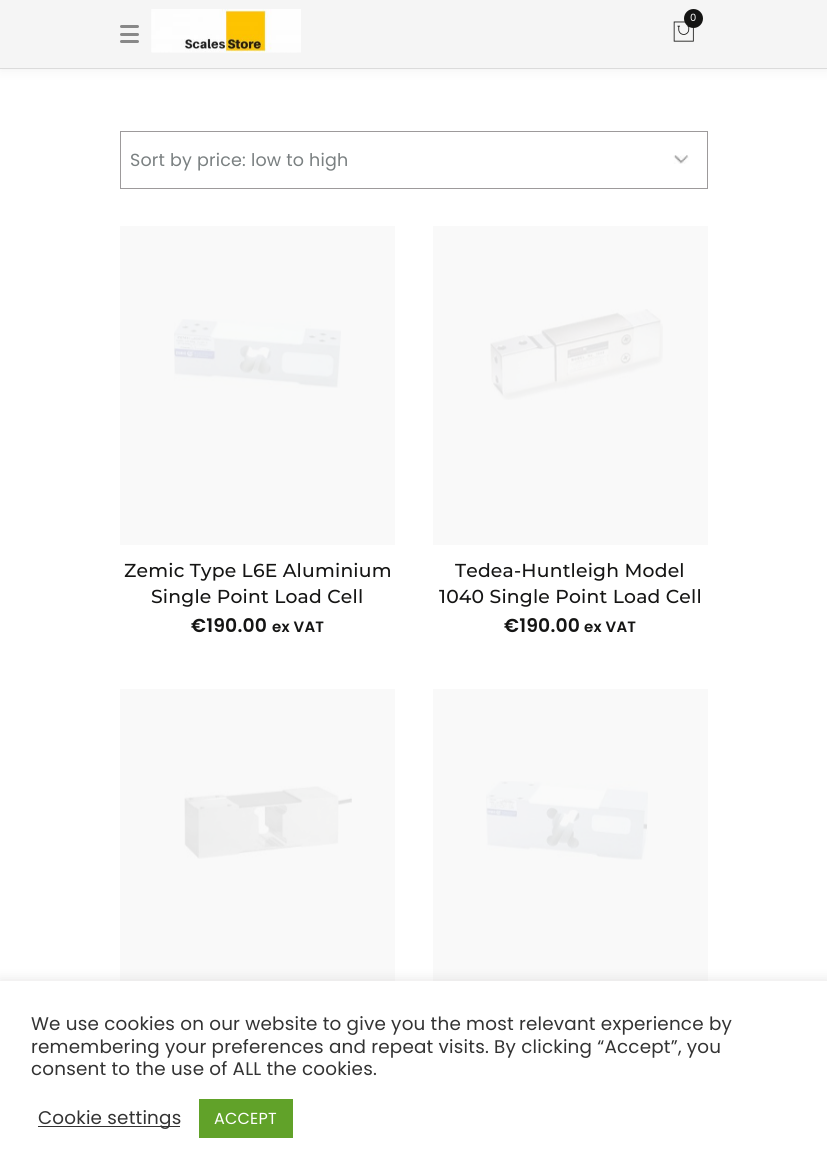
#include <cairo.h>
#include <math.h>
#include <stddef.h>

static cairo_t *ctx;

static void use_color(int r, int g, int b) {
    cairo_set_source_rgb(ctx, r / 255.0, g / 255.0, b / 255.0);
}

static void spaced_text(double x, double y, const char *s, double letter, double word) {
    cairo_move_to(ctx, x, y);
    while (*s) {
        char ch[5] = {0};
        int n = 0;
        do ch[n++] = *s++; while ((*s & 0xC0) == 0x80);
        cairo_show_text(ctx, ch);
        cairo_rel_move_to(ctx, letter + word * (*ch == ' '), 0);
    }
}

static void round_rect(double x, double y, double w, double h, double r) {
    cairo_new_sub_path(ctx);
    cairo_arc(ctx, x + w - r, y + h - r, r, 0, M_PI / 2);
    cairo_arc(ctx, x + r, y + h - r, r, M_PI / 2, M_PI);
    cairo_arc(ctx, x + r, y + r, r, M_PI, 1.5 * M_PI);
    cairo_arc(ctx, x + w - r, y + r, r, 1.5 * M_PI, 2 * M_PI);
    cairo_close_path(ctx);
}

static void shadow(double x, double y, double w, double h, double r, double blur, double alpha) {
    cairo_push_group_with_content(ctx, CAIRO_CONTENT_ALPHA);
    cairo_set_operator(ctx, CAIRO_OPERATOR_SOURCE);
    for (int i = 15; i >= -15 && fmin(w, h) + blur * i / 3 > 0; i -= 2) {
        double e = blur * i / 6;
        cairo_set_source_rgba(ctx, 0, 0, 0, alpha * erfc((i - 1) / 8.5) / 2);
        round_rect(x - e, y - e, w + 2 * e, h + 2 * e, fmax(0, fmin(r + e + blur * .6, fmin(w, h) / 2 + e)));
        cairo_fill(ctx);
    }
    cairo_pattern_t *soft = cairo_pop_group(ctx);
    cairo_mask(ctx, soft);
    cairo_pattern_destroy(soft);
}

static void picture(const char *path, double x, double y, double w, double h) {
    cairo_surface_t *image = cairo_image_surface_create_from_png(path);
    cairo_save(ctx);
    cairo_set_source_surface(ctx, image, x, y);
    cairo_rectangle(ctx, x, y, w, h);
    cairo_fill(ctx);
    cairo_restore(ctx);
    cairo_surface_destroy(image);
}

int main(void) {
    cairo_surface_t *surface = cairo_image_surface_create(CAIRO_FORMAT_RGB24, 827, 1175);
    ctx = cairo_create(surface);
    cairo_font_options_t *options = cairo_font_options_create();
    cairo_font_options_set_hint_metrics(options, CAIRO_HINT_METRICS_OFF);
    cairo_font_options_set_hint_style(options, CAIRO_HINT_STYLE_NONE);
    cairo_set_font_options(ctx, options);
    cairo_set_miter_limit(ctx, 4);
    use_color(255, 255, 255);
    cairo_paint(ctx);
    use_color(0, 0, 0);
    shadow(0, 3, 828, 68, 0, 6, 0.05);
    use_color(245, 245, 245);
    cairo_rectangle(ctx, 0, 0, 827, 68);
    cairo_fill(ctx);
    use_color(219, 219, 219);
    cairo_rectangle(ctx, 0, 68, 827, 1);
    cairo_fill(ctx);
    use_color(136, 136, 136);
    round_rect(120, 25, 19, 3, 1.5);
    cairo_fill(ctx);
    round_rect(120, 33, 19, 3, 1.5);
    cairo_fill(ctx);
    round_rect(120, 40, 19, 3, 1.5);
    cairo_fill(ctx);
    picture("img1.png", 151, 9, 150, 44);
    picture("img2.png", 673, 21, 21, 21);
    use_color(21, 21, 20);
    cairo_arc(ctx, 693.5, 18.5, 9.5, 0, 2 * M_PI);
    cairo_fill(ctx);
    cairo_select_font_face(ctx, "Poppins", CAIRO_FONT_SLANT_NORMAL, CAIRO_FONT_WEIGHT_NORMAL);
    cairo_set_font_size(ctx, 10);
    use_color(255, 255, 255);
    spaced_text(690, 21, "0", 0.2, 0);
    picture("img3.png", 673, 155, 16, 9);
    cairo_rectangle(ctx, 120.5, 131.5, 587, 57);
    use_color(157, 154, 155);
    cairo_set_line_width(ctx, 1);
    cairo_stroke(ctx);
    cairo_set_font_size(ctx, 17.5);
    use_color(122, 128, 129);
    spaced_text(130, 166, "Sort by price: low to high", 0.2, 0);
    use_color(249, 249, 249);
    cairo_rectangle(ctx, 120, 226, 275, 319);
    cairo_fill(ctx);
    picture("img4.png", 174, 319, 167, 69);
    cairo_select_font_face(ctx, "Montserrat Medium", CAIRO_FONT_SLANT_NORMAL, CAIRO_FONT_WEIGHT_NORMAL);
    cairo_set_font_size(ctx, 18.75);
    use_color(21, 21, 20);
    spaced_text(124, 577, "Zemic Type L6E Aluminium", 0.2, 0);
    spaced_text(151, 603, "Single Point Load Cell", 0.2, 0);
    cairo_select_font_face(ctx, "Poppins SemiBold", CAIRO_FONT_SLANT_NORMAL, CAIRO_FONT_WEIGHT_NORMAL);
    spaced_text(191, 632, "€190.00", 0.2, 0);
    cairo_set_font_size(ctx, 15);
    spaced_text(272, 632, "ex VAT", 0.2, 0);
    use_color(249, 249, 249);
    cairo_rectangle(ctx, 433, 226, 275, 319);
    cairo_fill(ctx);
    picture("img5.png", 490, 309, 173, 91);
    cairo_select_font_face(ctx, "Montserrat Medium", CAIRO_FONT_SLANT_NORMAL, CAIRO_FONT_WEIGHT_NORMAL);
    cairo_set_font_size(ctx, 18.75);
    use_color(21, 21, 20);
    spaced_text(455, 577, "Tedea-Huntleigh Model", 0.2, 0);
    spaced_text(439, 603, "1040 Single Point Load Cell", 0.2, 0);
    cairo_select_font_face(ctx, "Poppins SemiBold", CAIRO_FONT_SLANT_NORMAL, CAIRO_FONT_WEIGHT_NORMAL);
    spaced_text(504, 632, "€190.00", 0.2, 0);
    cairo_set_font_size(ctx, 15);
    spaced_text(584, 632, "ex VAT", 0.2, 0);
    use_color(249, 249, 249);
    cairo_rectangle(ctx, 120, 689, 275, 292);
    cairo_fill(ctx);
    picture("img6.png", 184, 786, 168, 73);
    cairo_rectangle(ctx, 433, 689, 275, 292);
    cairo_fill(ctx);
    picture("img7.png", 486, 781, 162, 79);
    use_color(172, 171, 171);
    shadow(0, 980, 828, 194, 0, 6, 0.3);
    use_color(255, 255, 255);
    cairo_rectangle(ctx, 0, 981, 827, 194);
    cairo_fill(ctx);
    cairo_select_font_face(ctx, "Poppins", CAIRO_FONT_SLANT_NORMAL, CAIRO_FONT_WEIGHT_NORMAL);
    cairo_set_font_size(ctx, 18.35);
    use_color(51, 51, 51);
    spaced_text(31, 1030, "We use cookies on our website to give you the most relevant experience by", 0.2, 0);
    spaced_text(31, 1053, "remembering your preferences and repeat visits. By clicking “Accept”, you", 0.2, 0);
    spaced_text(31, 1075, "consent to the use of ALL the cookies.", 0.2, 0);
    cairo_rectangle(ctx, 38, 1126, 142, 1);
    cairo_fill(ctx);
    spaced_text(38, 1124, "Cookie settings", 0.2, 0);
    use_color(97, 162, 41);
    cairo_rectangle(ctx, 199, 1099, 94, 39);
    cairo_fill(ctx);
    cairo_set_font_size(ctx, 16);
    use_color(255, 255, 255);
    spaced_text(214, 1124, "ACCEPT", 0.2, 0);
    cairo_surface_write_to_png(surface, "result.png");
    cairo_font_options_destroy(options);
    cairo_destroy(ctx);
    cairo_surface_destroy(surface);
    return 0;
}
